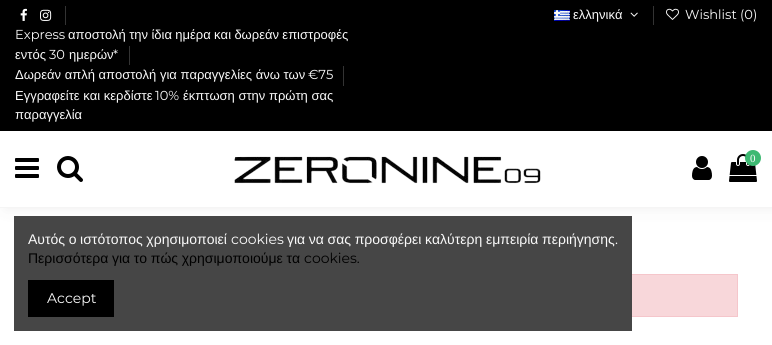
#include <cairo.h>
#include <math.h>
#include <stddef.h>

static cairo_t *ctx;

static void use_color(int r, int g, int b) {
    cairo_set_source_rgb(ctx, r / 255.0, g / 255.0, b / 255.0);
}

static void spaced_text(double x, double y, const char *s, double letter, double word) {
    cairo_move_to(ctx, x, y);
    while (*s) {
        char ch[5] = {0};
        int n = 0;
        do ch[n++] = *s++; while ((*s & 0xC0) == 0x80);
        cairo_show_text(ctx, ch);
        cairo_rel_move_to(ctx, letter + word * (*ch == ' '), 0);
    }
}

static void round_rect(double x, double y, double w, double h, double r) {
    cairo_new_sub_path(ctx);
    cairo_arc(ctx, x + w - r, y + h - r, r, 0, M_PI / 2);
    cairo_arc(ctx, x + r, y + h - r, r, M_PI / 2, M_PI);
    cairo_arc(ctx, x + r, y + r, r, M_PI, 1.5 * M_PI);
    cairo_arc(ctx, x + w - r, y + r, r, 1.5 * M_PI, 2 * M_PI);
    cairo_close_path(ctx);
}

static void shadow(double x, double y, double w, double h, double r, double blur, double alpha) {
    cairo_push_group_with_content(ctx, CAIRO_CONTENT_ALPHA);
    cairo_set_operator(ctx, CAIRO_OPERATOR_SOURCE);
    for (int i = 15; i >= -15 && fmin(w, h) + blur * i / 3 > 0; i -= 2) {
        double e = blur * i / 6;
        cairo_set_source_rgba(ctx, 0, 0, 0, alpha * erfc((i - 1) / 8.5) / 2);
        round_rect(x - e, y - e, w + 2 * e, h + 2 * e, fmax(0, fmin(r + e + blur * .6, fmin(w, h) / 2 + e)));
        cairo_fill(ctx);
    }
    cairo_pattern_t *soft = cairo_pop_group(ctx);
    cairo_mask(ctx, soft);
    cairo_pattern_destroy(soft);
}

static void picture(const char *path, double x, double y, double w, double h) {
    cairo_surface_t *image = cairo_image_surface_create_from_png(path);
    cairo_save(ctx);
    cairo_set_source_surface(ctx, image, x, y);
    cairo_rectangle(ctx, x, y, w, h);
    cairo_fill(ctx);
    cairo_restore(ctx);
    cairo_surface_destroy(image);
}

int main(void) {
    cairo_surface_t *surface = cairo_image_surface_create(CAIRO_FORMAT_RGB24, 772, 345);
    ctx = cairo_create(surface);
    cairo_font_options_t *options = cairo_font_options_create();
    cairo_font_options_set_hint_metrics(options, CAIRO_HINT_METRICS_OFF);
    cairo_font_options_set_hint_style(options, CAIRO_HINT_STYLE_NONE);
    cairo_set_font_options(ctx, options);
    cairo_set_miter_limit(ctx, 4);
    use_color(255, 255, 255);
    cairo_paint(ctx);
    use_color(61, 57, 57);
    shadow(5, 0, 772, 208, 0, 7.5, 0.09);
    use_color(0, 0, 0);
    cairo_rectangle(ctx, 0, 0, 772, 131);
    cairo_fill(ctx);
    picture("img1.png", 554, 10, 16, 11);
    cairo_select_font_face(ctx, "Liberation Sans", CAIRO_FONT_SLANT_NORMAL, CAIRO_FONT_WEIGHT_NORMAL);
    cairo_set_font_size(ctx, 13);
    use_color(250, 250, 250);
    cairo_move_to(ctx, 573, 19);
    cairo_show_text(ctx, "ελληνικά");
    picture("img2.png", 630, 12, 8, 5);
    use_color(51, 51, 51);
    cairo_rectangle(ctx, 653, 6, 1, 19);
    cairo_fill(ctx);
    picture("img3.png", 666, 8, 13, 12);
    cairo_select_font_face(ctx, "Montserrat", CAIRO_FONT_SLANT_NORMAL, CAIRO_FONT_WEIGHT_NORMAL);
    use_color(250, 250, 250);
    cairo_move_to(ctx, 685, 19);
    cairo_show_text(ctx, "Wishlist (0)");
    picture("img4.png", 20, 8, 7, 13);
    picture("img5.png", 40, 9, 12, 12);
    use_color(51, 51, 51);
    cairo_rectangle(ctx, 65, 6, 1, 19);
    cairo_fill(ctx);
    use_color(250, 250, 250);
    cairo_move_to(ctx, 15, 39);
    cairo_show_text(ctx, "Express");
    cairo_select_font_face(ctx, "Liberation Sans", CAIRO_FONT_SLANT_NORMAL, CAIRO_FONT_WEIGHT_NORMAL);
    spaced_text(68, 39, "αποστολή την ίδια ημέρα και δωρεάν επιστροφές", 0, -0.25);
    cairo_move_to(ctx, 15, 59);
    cairo_show_text(ctx, "εντός");
    cairo_select_font_face(ctx, "Montserrat", CAIRO_FONT_SLANT_NORMAL, CAIRO_FONT_WEIGHT_NORMAL);
    cairo_move_to(ctx, 49, 59);
    cairo_show_text(ctx, "30");
    cairo_select_font_face(ctx, "Liberation Sans", CAIRO_FONT_SLANT_NORMAL, CAIRO_FONT_WEIGHT_NORMAL);
    cairo_move_to(ctx, 69, 59);
    cairo_show_text(ctx, "ημερών");
    cairo_select_font_face(ctx, "Montserrat", CAIRO_FONT_SLANT_NORMAL, CAIRO_FONT_WEIGHT_NORMAL);
    cairo_move_to(ctx, 113, 59);
    cairo_show_text(ctx, "*");
    use_color(51, 51, 51);
    cairo_rectangle(ctx, 129, 46, 1, 19);
    cairo_fill(ctx);
    cairo_select_font_face(ctx, "Liberation Sans", CAIRO_FONT_SLANT_NORMAL, CAIRO_FONT_WEIGHT_NORMAL);
    use_color(250, 250, 250);
    cairo_move_to(ctx, 15, 79);
    cairo_show_text(ctx, "Δωρεάν απλή αποστολή για παραγγελίες άνω των");
    cairo_select_font_face(ctx, "Montserrat", CAIRO_FONT_SLANT_NORMAL, CAIRO_FONT_WEIGHT_NORMAL);
    cairo_move_to(ctx, 308, 79);
    cairo_show_text(ctx, "€75");
    use_color(51, 51, 51);
    cairo_rectangle(ctx, 343, 66, 1, 20);
    cairo_fill(ctx);
    cairo_select_font_face(ctx, "Liberation Sans", CAIRO_FONT_SLANT_NORMAL, CAIRO_FONT_WEIGHT_NORMAL);
    use_color(250, 250, 250);
    cairo_move_to(ctx, 15, 100);
    cairo_show_text(ctx, "Εγγραφείτε και κερδίστε");
    cairo_select_font_face(ctx, "Montserrat", CAIRO_FONT_SLANT_NORMAL, CAIRO_FONT_WEIGHT_NORMAL);
    cairo_move_to(ctx, 155, 100);
    cairo_show_text(ctx, "10%");
    cairo_select_font_face(ctx, "Liberation Sans", CAIRO_FONT_SLANT_NORMAL, CAIRO_FONT_WEIGHT_NORMAL);
    cairo_move_to(ctx, 183, 100);
    cairo_show_text(ctx, "έκπτωση στην πρώτη σας");
    cairo_move_to(ctx, 15, 119);
    cairo_show_text(ctx, "παραγγελία");
    use_color(245, 245, 245);
    cairo_rectangle(ctx, 0, 207, 772, 1);
    cairo_fill(ctx);
    use_color(255, 255, 255);
    cairo_rectangle(ctx, 0, 131, 772, 76);
    cairo_fill(ctx);
    picture("img6.png", 15, 158, 24, 20);
    picture("img7.png", 57, 156, 26, 26);
    picture("img8.png", 234, 156, 307, 28);
    picture("img9.png", 692, 156, 20, 24);
    picture("img10.png", 729, 154, 28, 28);
    use_color(61, 185, 114);
    cairo_arc(ctx, 753, 158, 8, 0, 2 * M_PI);
    cairo_fill(ctx);
    cairo_select_font_face(ctx, "Liberation Serif", CAIRO_FONT_SLANT_NORMAL, CAIRO_FONT_WEIGHT_NORMAL);
    cairo_set_font_size(ctx, 11);
    use_color(250, 250, 250);
    cairo_move_to(ctx, 750, 162);
    cairo_show_text(ctx, "0");
    use_color(248, 215, 218);
    cairo_rectangle(ctx, 632, 275, 105, 41);
    cairo_fill(ctx);
    cairo_rectangle(ctx, 34.5, 274.5, 703, 42);
    use_color(245, 198, 203);
    cairo_set_line_width(ctx, 1);
    cairo_stroke(ctx);
    use_color(70, 70, 70);
    cairo_rectangle(ctx, 14, 216, 618, 115);
    cairo_fill(ctx);
    cairo_select_font_face(ctx, "Liberation Sans", CAIRO_FONT_SLANT_NORMAL, CAIRO_FONT_WEIGHT_NORMAL);
    cairo_set_font_size(ctx, 14);
    use_color(250, 250, 250);
    spaced_text(28, 244, "Αυτός ο ιστότοπος χρησιμοποιεί", 0, -0.25);
    cairo_select_font_face(ctx, "Montserrat", CAIRO_FONT_SLANT_NORMAL, CAIRO_FONT_WEIGHT_NORMAL);
    cairo_move_to(ctx, 231, 244);
    cairo_show_text(ctx, "cookies");
    cairo_select_font_face(ctx, "Liberation Sans", CAIRO_FONT_SLANT_NORMAL, CAIRO_FONT_WEIGHT_NORMAL);
    spaced_text(287, 244, "για να σας προσφέρει καλύτερη εμπειρία περιήγησης", 0, -0.25);
    cairo_select_font_face(ctx, "Montserrat", CAIRO_FONT_SLANT_NORMAL, CAIRO_FONT_WEIGHT_NORMAL);
    cairo_move_to(ctx, 615, 244);
    cairo_show_text(ctx, ".");
    cairo_select_font_face(ctx, "Liberation Sans", CAIRO_FONT_SLANT_NORMAL, CAIRO_FONT_WEIGHT_NORMAL);
    use_color(0, 0, 0);
    spaced_text(28, 263, "Περισσότερα για το πώς χρησιμοποιούμε τα", 0, -0.25);
    cairo_select_font_face(ctx, "Montserrat", CAIRO_FONT_SLANT_NORMAL, CAIRO_FONT_WEIGHT_NORMAL);
    cairo_move_to(ctx, 304, 263);
    cairo_show_text(ctx, "cookies.");
    cairo_rectangle(ctx, 28, 280, 86, 37);
    cairo_fill(ctx);
    use_color(250, 250, 250);
    cairo_move_to(ctx, 47, 303);
    cairo_show_text(ctx, "Accept");
    cairo_surface_write_to_png(surface, "result.png");
    cairo_font_options_destroy(options);
    cairo_destroy(ctx);
    cairo_surface_destroy(surface);
    return 0;
}
